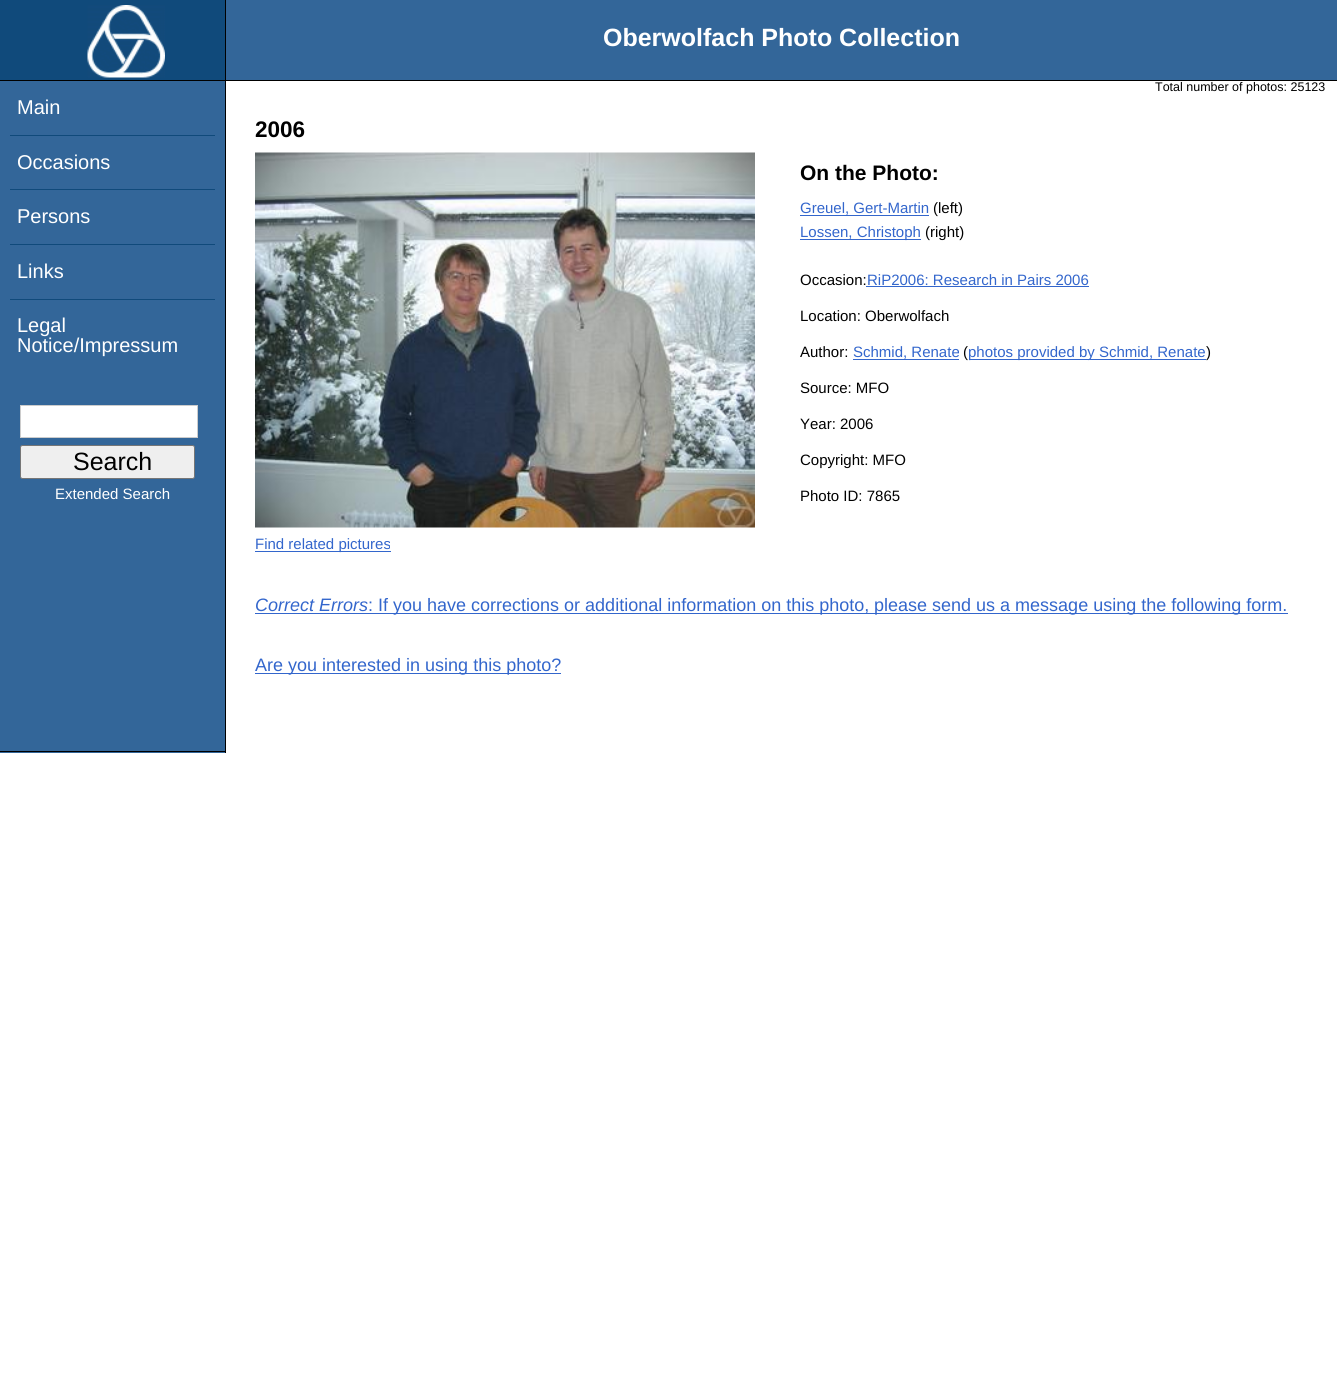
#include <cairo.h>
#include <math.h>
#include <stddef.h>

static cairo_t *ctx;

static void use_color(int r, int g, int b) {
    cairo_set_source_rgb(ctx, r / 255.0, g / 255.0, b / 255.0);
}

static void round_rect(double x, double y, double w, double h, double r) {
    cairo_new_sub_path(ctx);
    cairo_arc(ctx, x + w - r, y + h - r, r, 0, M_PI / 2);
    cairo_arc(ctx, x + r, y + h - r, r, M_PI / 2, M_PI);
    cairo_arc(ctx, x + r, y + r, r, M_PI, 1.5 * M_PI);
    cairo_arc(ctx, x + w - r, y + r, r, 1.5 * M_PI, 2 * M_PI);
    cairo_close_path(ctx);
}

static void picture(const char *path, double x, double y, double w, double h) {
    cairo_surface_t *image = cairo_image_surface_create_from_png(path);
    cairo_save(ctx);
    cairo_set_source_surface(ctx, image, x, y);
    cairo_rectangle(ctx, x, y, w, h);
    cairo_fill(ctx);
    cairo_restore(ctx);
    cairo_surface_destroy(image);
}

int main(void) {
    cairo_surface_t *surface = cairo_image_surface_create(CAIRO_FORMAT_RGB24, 1337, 1377);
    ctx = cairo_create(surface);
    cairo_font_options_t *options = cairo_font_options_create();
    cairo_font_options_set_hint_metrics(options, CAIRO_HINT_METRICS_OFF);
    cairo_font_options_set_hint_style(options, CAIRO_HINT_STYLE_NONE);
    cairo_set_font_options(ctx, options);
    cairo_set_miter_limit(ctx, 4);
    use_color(255, 255, 255);
    cairo_paint(ctx);
    use_color(51, 102, 153);
    cairo_rectangle(ctx, 226, 0, 1111, 80);
    cairo_fill(ctx);
    use_color(0, 0, 0);
    cairo_rectangle(ctx, 0, 80, 1337, 1);
    cairo_fill(ctx);
    use_color(16, 74, 123);
    cairo_rectangle(ctx, 0, 0, 225, 80);
    cairo_fill(ctx);
    use_color(0, 0, 0);
    cairo_rectangle(ctx, 225, 0, 1, 80);
    cairo_fill(ctx);
    picture("img1.png", 87, 5, 78, 73);
    cairo_select_font_face(ctx, "Liberation Sans", CAIRO_FONT_SLANT_NORMAL, CAIRO_FONT_WEIGHT_BOLD);
    cairo_set_font_size(ctx, 25);
    use_color(255, 255, 255);
    cairo_move_to(ctx, 603, 46);
    cairo_show_text(ctx, "Oberwolfach Photo Collection");
    cairo_select_font_face(ctx, "Liberation Sans", CAIRO_FONT_SLANT_NORMAL, CAIRO_FONT_WEIGHT_NORMAL);
    cairo_set_font_size(ctx, 12.5);
    use_color(0, 0, 0);
    cairo_move_to(ctx, 1155, 91);
    cairo_show_text(ctx, "Total number of photos: 25123");
    use_color(51, 102, 153);
    cairo_rectangle(ctx, 0, 81, 225, 672);
    cairo_fill(ctx);
    use_color(0, 0, 0);
    cairo_rectangle(ctx, 225, 81, 1, 672);
    cairo_fill(ctx);
    cairo_rectangle(ctx, 0, 751, 226, 1);
    cairo_fill(ctx);
    cairo_set_font_size(ctx, 20);
    use_color(255, 255, 255);
    cairo_move_to(ctx, 17, 114);
    cairo_show_text(ctx, "Main");
    use_color(16, 74, 123);
    cairo_rectangle(ctx, 10, 135, 205, 1);
    cairo_fill(ctx);
    use_color(255, 255, 255);
    cairo_move_to(ctx, 17, 169);
    cairo_show_text(ctx, "Occasions");
    use_color(16, 74, 123);
    cairo_rectangle(ctx, 10, 189, 205, 1);
    cairo_fill(ctx);
    use_color(255, 255, 255);
    cairo_move_to(ctx, 17, 223);
    cairo_show_text(ctx, "Persons");
    use_color(16, 74, 123);
    cairo_rectangle(ctx, 10, 244, 205, 1);
    cairo_fill(ctx);
    use_color(255, 255, 255);
    cairo_move_to(ctx, 17, 278);
    cairo_show_text(ctx, "Links");
    use_color(16, 74, 123);
    cairo_rectangle(ctx, 10, 299, 205, 1);
    cairo_fill(ctx);
    use_color(255, 255, 255);
    cairo_move_to(ctx, 17, 332);
    cairo_show_text(ctx, "Legal");
    cairo_move_to(ctx, 17, 352);
    cairo_show_text(ctx, "Notice/Impressum");
    cairo_rectangle(ctx, 20.5, 405.5, 177, 32);
    cairo_fill_preserve(ctx);
    use_color(204, 204, 204);
    cairo_set_line_width(ctx, 1);
    cairo_stroke(ctx);
    use_color(239, 239, 239);
    round_rect(20.5, 445.5, 174, 33, 2);
    cairo_fill_preserve(ctx);
    use_color(118, 118, 118);
    cairo_stroke(ctx);
    cairo_set_font_size(ctx, 25);
    use_color(0, 0, 0);
    cairo_move_to(ctx, 73, 470);
    cairo_show_text(ctx, "Search");
    cairo_set_font_size(ctx, 15);
    use_color(255, 255, 255);
    cairo_move_to(ctx, 55, 499);
    cairo_show_text(ctx, "Extended Search");
    cairo_select_font_face(ctx, "Liberation Sans", CAIRO_FONT_SLANT_NORMAL, CAIRO_FONT_WEIGHT_BOLD);
    cairo_set_font_size(ctx, 22.5);
    use_color(0, 0, 0);
    cairo_move_to(ctx, 255, 137);
    cairo_show_text(ctx, "2006");
    picture("img2.png", 255, 152, 500, 376);
    cairo_set_font_size(ctx, 21);
    cairo_move_to(ctx, 800, 180);
    cairo_show_text(ctx, "On the Photo:");
    cairo_select_font_face(ctx, "Liberation Sans", CAIRO_FONT_SLANT_NORMAL, CAIRO_FONT_WEIGHT_NORMAL);
    cairo_set_font_size(ctx, 15);
    use_color(51, 102, 204);
    cairo_move_to(ctx, 800, 213);
    cairo_show_text(ctx, "Greuel, Gert-Martin");
    cairo_rectangle(ctx, 800, 215, 129, 1);
    cairo_fill(ctx);
    use_color(0, 0, 0);
    cairo_move_to(ctx, 933, 213);
    cairo_show_text(ctx, "(left)");
    use_color(51, 102, 204);
    cairo_rectangle(ctx, 800, 239, 121, 1);
    cairo_fill(ctx);
    cairo_move_to(ctx, 800, 237);
    cairo_show_text(ctx, "Lossen, Christoph");
    use_color(0, 0, 0);
    cairo_move_to(ctx, 925, 237);
    cairo_show_text(ctx, "(right)");
    cairo_move_to(ctx, 800, 285);
    cairo_show_text(ctx, "Occasion:");
    use_color(51, 102, 204);
    cairo_move_to(ctx, 867, 285);
    cairo_show_text(ctx, "RiP2006: Research in Pairs 2006");
    cairo_rectangle(ctx, 866, 286, 223, 1);
    cairo_fill(ctx);
    use_color(0, 0, 0);
    cairo_move_to(ctx, 800, 321);
    cairo_show_text(ctx, "Location: Oberwolfach");
    cairo_move_to(ctx, 800, 357);
    cairo_show_text(ctx, "Author:");
    use_color(51, 102, 204);
    cairo_move_to(ctx, 853, 357);
    cairo_show_text(ctx, "Schmid, Renate");
    cairo_rectangle(ctx, 853, 359, 106, 1);
    cairo_fill(ctx);
    use_color(0, 0, 0);
    cairo_move_to(ctx, 963, 357);
    cairo_show_text(ctx, "(");
    use_color(51, 102, 204);
    cairo_rectangle(ctx, 969, 359, 237, 1);
    cairo_fill(ctx);
    cairo_move_to(ctx, 968, 357);
    cairo_show_text(ctx, "photos provided by Schmid, Renate");
    use_color(0, 0, 0);
    cairo_move_to(ctx, 1206, 357);
    cairo_show_text(ctx, ")");
    cairo_move_to(ctx, 800, 393);
    cairo_show_text(ctx, "Source: MFO");
    cairo_move_to(ctx, 800, 429);
    cairo_show_text(ctx, "Year: 2006");
    cairo_move_to(ctx, 800, 465);
    cairo_show_text(ctx, "Copyright: MFO");
    cairo_move_to(ctx, 800, 501);
    cairo_show_text(ctx, "Photo ID: 7865");
    use_color(51, 102, 204);
    cairo_rectangle(ctx, 255, 551, 136, 1);
    cairo_fill(ctx);
    cairo_move_to(ctx, 255, 549);
    cairo_show_text(ctx, "Find related pictures");
    cairo_select_font_face(ctx, "Liberation Sans", CAIRO_FONT_SLANT_ITALIC, CAIRO_FONT_WEIGHT_NORMAL);
    cairo_set_font_size(ctx, 18);
    cairo_move_to(ctx, 255, 611);
    cairo_show_text(ctx, "Correct Errors");
    cairo_rectangle(ctx, 255, 613, 1033, 1);
    cairo_fill(ctx);
    cairo_select_font_face(ctx, "Liberation Sans", CAIRO_FONT_SLANT_NORMAL, CAIRO_FONT_WEIGHT_NORMAL);
    cairo_move_to(ctx, 368, 611);
    cairo_show_text(ctx, ": If you have corrections or additional information on this photo,");
    cairo_move_to(ctx, 874, 611);
    cairo_show_text(ctx, "please send us a message using the following form.");
    cairo_rectangle(ctx, 255, 673, 306, 1);
    cairo_fill(ctx);
    cairo_move_to(ctx, 255, 671);
    cairo_show_text(ctx, "Are you interested in using this photo?");
    cairo_surface_write_to_png(surface, "result.png");
    cairo_font_options_destroy(options);
    cairo_destroy(ctx);
    cairo_surface_destroy(surface);
    return 0;
}
